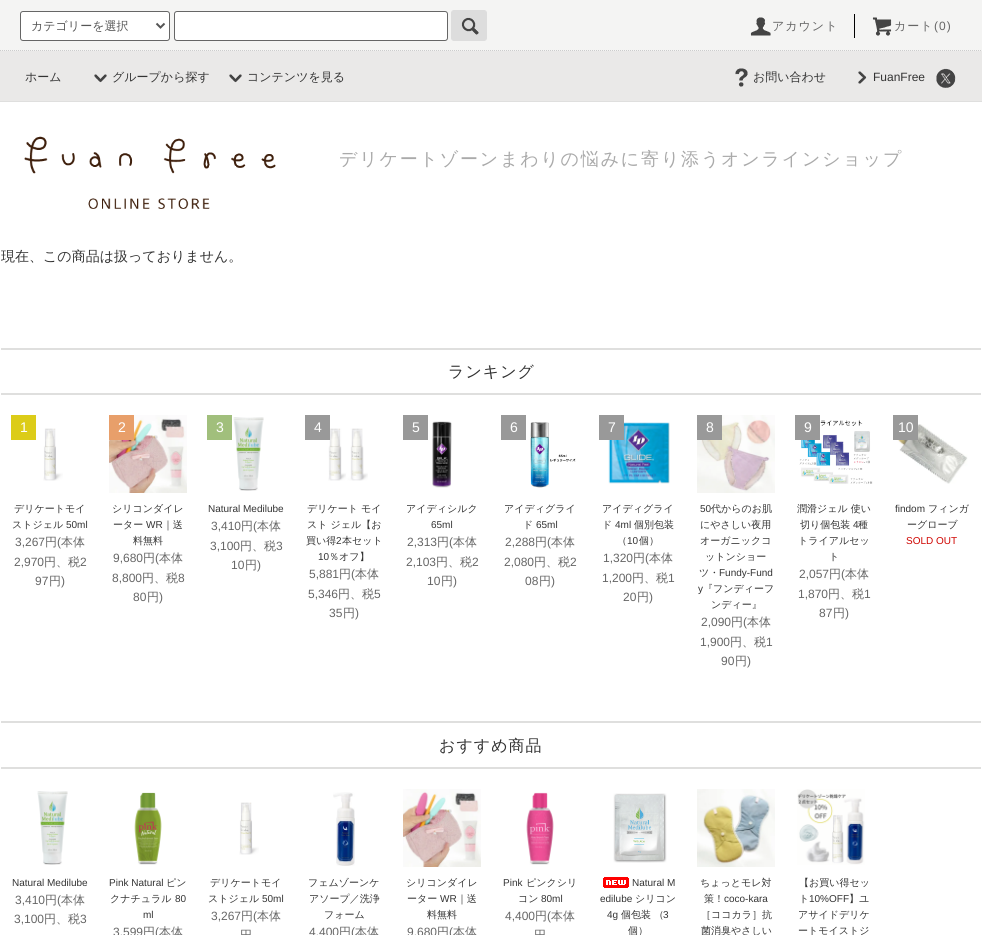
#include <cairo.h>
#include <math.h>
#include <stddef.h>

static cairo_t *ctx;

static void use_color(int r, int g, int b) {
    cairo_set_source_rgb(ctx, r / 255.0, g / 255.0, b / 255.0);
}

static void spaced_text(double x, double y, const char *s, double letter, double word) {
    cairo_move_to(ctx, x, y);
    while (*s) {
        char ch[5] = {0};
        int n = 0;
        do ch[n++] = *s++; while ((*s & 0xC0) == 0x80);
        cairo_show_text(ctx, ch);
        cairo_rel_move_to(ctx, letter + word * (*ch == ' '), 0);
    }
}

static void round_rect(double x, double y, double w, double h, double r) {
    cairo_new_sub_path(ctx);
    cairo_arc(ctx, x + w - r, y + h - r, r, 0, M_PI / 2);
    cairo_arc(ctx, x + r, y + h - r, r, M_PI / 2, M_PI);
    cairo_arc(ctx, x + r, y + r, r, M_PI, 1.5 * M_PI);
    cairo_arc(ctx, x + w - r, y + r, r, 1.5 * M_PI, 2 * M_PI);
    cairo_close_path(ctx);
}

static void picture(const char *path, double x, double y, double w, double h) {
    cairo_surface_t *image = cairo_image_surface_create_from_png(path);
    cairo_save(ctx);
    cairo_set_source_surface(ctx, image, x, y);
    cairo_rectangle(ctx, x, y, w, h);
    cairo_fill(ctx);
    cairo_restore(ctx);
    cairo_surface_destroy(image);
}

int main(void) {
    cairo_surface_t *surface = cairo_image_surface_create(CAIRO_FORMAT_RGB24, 982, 935);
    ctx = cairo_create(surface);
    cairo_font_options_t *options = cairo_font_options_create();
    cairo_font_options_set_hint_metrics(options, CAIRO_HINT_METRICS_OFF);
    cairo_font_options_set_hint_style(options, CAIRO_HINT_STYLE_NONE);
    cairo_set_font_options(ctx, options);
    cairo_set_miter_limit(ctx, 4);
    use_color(255, 255, 255);
    cairo_paint(ctx);
    use_color(244, 244, 243);
    cairo_rectangle(ctx, 0, 0, 982, 51);
    cairo_fill(ctx);
    cairo_new_path(ctx);
    cairo_move_to(ctx, 0, 50.5);
    cairo_line_to(ctx, 982, 50.5);
    use_color(204, 204, 204);
    cairo_set_line_width(ctx, 1);
    cairo_set_dash(ctx, (double[]){1, 1}, 2, 0);
    cairo_stroke(ctx);
    use_color(255, 255, 255);
    round_rect(20.5, 11.5, 149, 29, 2.5);
    cairo_fill_preserve(ctx);
    use_color(102, 102, 102);
    cairo_set_dash(ctx, NULL, 0, 0);
    cairo_stroke(ctx);
    cairo_new_path(ctx);
    cairo_move_to(ctx, 156.5, 23.5);
    cairo_line_to(ctx, 160.5, 27.5);
    cairo_line_to(ctx, 164.5, 23.5);
    use_color(85, 85, 85);
    cairo_set_line_width(ctx, 2);
    cairo_stroke(ctx);
    cairo_select_font_face(ctx, "WenQuanYi Zen Hei Medium", CAIRO_FONT_SLANT_NORMAL, CAIRO_FONT_WEIGHT_NORMAL);
    cairo_set_font_size(ctx, 12);
    cairo_move_to(ctx, 31, 30);
    cairo_show_text(ctx, "カテゴリーを選択");
    use_color(255, 255, 255);
    round_rect(174.5, 11.5, 273, 29, 2.5);
    cairo_fill_preserve(ctx);
    use_color(102, 102, 102);
    cairo_set_line_width(ctx, 1);
    cairo_stroke(ctx);
    use_color(221, 221, 221);
    round_rect(451.5, 10.5, 35, 30, 2.5);
    cairo_fill_preserve(ctx);
    cairo_stroke(ctx);
    picture("img1.png", 461, 17, 18, 18);
    picture("img2.png", 750, 17, 21, 19);
    use_color(102, 102, 102);
    spaced_text(772, 30, "アカウント", 1, 0);
    use_color(0, 0, 0);
    cairo_rectangle(ctx, 854, 14, 1, 24);
    cairo_fill(ctx);
    picture("img3.png", 872, 17, 20, 19);
    use_color(102, 102, 102);
    spaced_text(894, 30, "カート", 1, 0);
    cairo_select_font_face(ctx, "Liberation Sans", CAIRO_FONT_SLANT_NORMAL, CAIRO_FONT_WEIGHT_NORMAL);
    spaced_text(934, 30, "(0)", 1, 0);
    use_color(234, 233, 232);
    cairo_rectangle(ctx, 0, 51, 982, 50);
    cairo_fill(ctx);
    use_color(223, 223, 222);
    cairo_rectangle(ctx, 0, 101, 982, 1);
    cairo_fill(ctx);
    cairo_select_font_face(ctx, "WenQuanYi Zen Hei Medium", CAIRO_FONT_SLANT_NORMAL, CAIRO_FONT_WEIGHT_NORMAL);
    use_color(51, 51, 51);
    cairo_move_to(ctx, 25, 81);
    cairo_show_text(ctx, "ホーム");
    picture("img4.png", 94, 74, 13, 9);
    cairo_move_to(ctx, 112, 81);
    cairo_show_text(ctx, "グループから探す");
    picture("img4.png", 229, 74, 13, 9);
    cairo_move_to(ctx, 247, 81);
    cairo_show_text(ctx, "コンテンツを見る");
    picture("img5.png", 735, 68, 13, 19);
    cairo_move_to(ctx, 753, 81);
    cairo_show_text(ctx, "お問い合わせ");
    picture("img6.png", 858, 71, 9, 13);
    cairo_select_font_face(ctx, "Liberation Sans", CAIRO_FONT_SLANT_NORMAL, CAIRO_FONT_WEIGHT_NORMAL);
    cairo_move_to(ctx, 873, 81);
    cairo_show_text(ctx, "FuanFree");
    picture("img7.png", 936, 68, 20, 20);
    picture("img8.png", 24, 136, 252, 73);
    cairo_select_font_face(ctx, "WenQuanYi Zen Hei Medium", CAIRO_FONT_SLANT_NORMAL, CAIRO_FONT_WEIGHT_NORMAL);
    cairo_set_font_size(ctx, 18);
    use_color(170, 170, 170);
    spaced_text(339, 165, "デリケートゾーンまわりの悩みに寄り添うオンラインショップ", 1.8, 0);
    cairo_set_font_size(ctx, 14);
    use_color(51, 51, 51);
    cairo_move_to(ctx, 1, 261);
    cairo_show_text(ctx, "現在、この商品は扱っておりません。");
    use_color(223, 223, 222);
    cairo_rectangle(ctx, 1, 348, 980, 2);
    cairo_fill(ctx);
    cairo_rectangle(ctx, 1, 393, 980, 2);
    cairo_fill(ctx);
    cairo_set_font_size(ctx, 16);
    use_color(51, 51, 51);
    spaced_text(448, 377, "ランキング", 1, 0);
    use_color(220, 204, 24);
    cairo_rectangle(ctx, 11, 415, 25, 25);
    cairo_fill(ctx);
    cairo_select_font_face(ctx, "Liberation Sans", CAIRO_FONT_SLANT_NORMAL, CAIRO_FONT_WEIGHT_NORMAL);
    cairo_set_font_size(ctx, 14);
    use_color(255, 255, 255);
    cairo_move_to(ctx, 20, 432);
    cairo_show_text(ctx, "1");
    picture("img9.png", 43, 428, 20, 53);
    cairo_select_font_face(ctx, "WenQuanYi Zen Hei Medium", CAIRO_FONT_SLANT_NORMAL, CAIRO_FONT_WEIGHT_NORMAL);
    cairo_set_font_size(ctx, 10);
    use_color(51, 51, 51);
    cairo_move_to(ctx, 14, 512);
    cairo_show_text(ctx, "デリケートモイ");
    cairo_move_to(ctx, 12, 528);
    cairo_show_text(ctx, "ストジェル");
    cairo_select_font_face(ctx, "Liberation Sans", CAIRO_FONT_SLANT_NORMAL, CAIRO_FONT_WEIGHT_NORMAL);
    cairo_move_to(ctx, 66, 528);
    cairo_show_text(ctx, "50ml");
    cairo_set_font_size(ctx, 12);
    use_color(102, 102, 102);
    cairo_move_to(ctx, 15, 546);
    cairo_show_text(ctx, "3,267");
    cairo_select_font_face(ctx, "WenQuanYi Zen Hei Medium", CAIRO_FONT_SLANT_NORMAL, CAIRO_FONT_WEIGHT_NORMAL);
    cairo_move_to(ctx, 45, 546);
    cairo_show_text(ctx, "円");
    cairo_select_font_face(ctx, "Liberation Sans", CAIRO_FONT_SLANT_NORMAL, CAIRO_FONT_WEIGHT_NORMAL);
    cairo_move_to(ctx, 57, 546);
    cairo_show_text(ctx, "(");
    cairo_select_font_face(ctx, "WenQuanYi Zen Hei Medium", CAIRO_FONT_SLANT_NORMAL, CAIRO_FONT_WEIGHT_NORMAL);
    cairo_move_to(ctx, 61, 546);
    cairo_show_text(ctx, "本体");
    cairo_select_font_face(ctx, "Liberation Sans", CAIRO_FONT_SLANT_NORMAL, CAIRO_FONT_WEIGHT_NORMAL);
    cairo_move_to(ctx, 14, 566);
    cairo_show_text(ctx, "2,970");
    cairo_select_font_face(ctx, "WenQuanYi Zen Hei Medium", CAIRO_FONT_SLANT_NORMAL, CAIRO_FONT_WEIGHT_NORMAL);
    cairo_move_to(ctx, 44, 566);
    cairo_show_text(ctx, "円、税");
    cairo_select_font_face(ctx, "Liberation Sans", CAIRO_FONT_SLANT_NORMAL, CAIRO_FONT_WEIGHT_NORMAL);
    cairo_move_to(ctx, 80, 566);
    cairo_show_text(ctx, "2");
    cairo_move_to(ctx, 35, 585);
    cairo_show_text(ctx, "97");
    cairo_select_font_face(ctx, "WenQuanYi Zen Hei Medium", CAIRO_FONT_SLANT_NORMAL, CAIRO_FONT_WEIGHT_NORMAL);
    cairo_move_to(ctx, 49, 585);
    cairo_show_text(ctx, "円");
    cairo_select_font_face(ctx, "Liberation Sans", CAIRO_FONT_SLANT_NORMAL, CAIRO_FONT_WEIGHT_NORMAL);
    cairo_move_to(ctx, 61, 585);
    cairo_show_text(ctx, ")");
    picture("img10.png", 109, 415, 78, 78);
    use_color(232, 159, 106);
    cairo_rectangle(ctx, 109, 415, 25, 25);
    cairo_fill(ctx);
    cairo_set_font_size(ctx, 14);
    use_color(255, 255, 255);
    cairo_move_to(ctx, 118, 432);
    cairo_show_text(ctx, "2");
    cairo_select_font_face(ctx, "WenQuanYi Zen Hei Medium", CAIRO_FONT_SLANT_NORMAL, CAIRO_FONT_WEIGHT_NORMAL);
    cairo_set_font_size(ctx, 10);
    use_color(51, 51, 51);
    cairo_move_to(ctx, 112, 512);
    cairo_show_text(ctx, "シリコンダイレ");
    cairo_move_to(ctx, 113, 528);
    cairo_show_text(ctx, "ーター");
    cairo_select_font_face(ctx, "Liberation Sans", CAIRO_FONT_SLANT_NORMAL, CAIRO_FONT_WEIGHT_NORMAL);
    cairo_move_to(ctx, 146, 528);
    cairo_show_text(ctx, "WR");
    cairo_select_font_face(ctx, "WenQuanYi Zen Hei Medium", CAIRO_FONT_SLANT_NORMAL, CAIRO_FONT_WEIGHT_NORMAL);
    cairo_move_to(ctx, 163, 528);
    cairo_show_text(ctx, "｜送");
    cairo_move_to(ctx, 133, 544);
    cairo_show_text(ctx, "料無料");
    cairo_select_font_face(ctx, "Liberation Sans", CAIRO_FONT_SLANT_NORMAL, CAIRO_FONT_WEIGHT_NORMAL);
    cairo_set_font_size(ctx, 12);
    use_color(102, 102, 102);
    cairo_move_to(ctx, 113, 562);
    cairo_show_text(ctx, "9,680");
    cairo_select_font_face(ctx, "WenQuanYi Zen Hei Medium", CAIRO_FONT_SLANT_NORMAL, CAIRO_FONT_WEIGHT_NORMAL);
    cairo_move_to(ctx, 143, 562);
    cairo_show_text(ctx, "円");
    cairo_select_font_face(ctx, "Liberation Sans", CAIRO_FONT_SLANT_NORMAL, CAIRO_FONT_WEIGHT_NORMAL);
    cairo_move_to(ctx, 155, 562);
    cairo_show_text(ctx, "(");
    cairo_select_font_face(ctx, "WenQuanYi Zen Hei Medium", CAIRO_FONT_SLANT_NORMAL, CAIRO_FONT_WEIGHT_NORMAL);
    cairo_move_to(ctx, 159, 562);
    cairo_show_text(ctx, "本体");
    cairo_select_font_face(ctx, "Liberation Sans", CAIRO_FONT_SLANT_NORMAL, CAIRO_FONT_WEIGHT_NORMAL);
    cairo_move_to(ctx, 112, 582);
    cairo_show_text(ctx, "8,800");
    cairo_select_font_face(ctx, "WenQuanYi Zen Hei Medium", CAIRO_FONT_SLANT_NORMAL, CAIRO_FONT_WEIGHT_NORMAL);
    cairo_move_to(ctx, 142, 582);
    cairo_show_text(ctx, "円、税");
    cairo_select_font_face(ctx, "Liberation Sans", CAIRO_FONT_SLANT_NORMAL, CAIRO_FONT_WEIGHT_NORMAL);
    cairo_move_to(ctx, 178, 582);
    cairo_show_text(ctx, "8");
    cairo_move_to(ctx, 133, 601);
    cairo_show_text(ctx, "80");
    cairo_select_font_face(ctx, "WenQuanYi Zen Hei Medium", CAIRO_FONT_SLANT_NORMAL, CAIRO_FONT_WEIGHT_NORMAL);
    cairo_move_to(ctx, 147, 601);
    cairo_show_text(ctx, "円");
    cairo_select_font_face(ctx, "Liberation Sans", CAIRO_FONT_SLANT_NORMAL, CAIRO_FONT_WEIGHT_NORMAL);
    cairo_move_to(ctx, 159, 601);
    cairo_show_text(ctx, ")");
    use_color(161, 191, 124);
    cairo_rectangle(ctx, 207, 415, 25, 25);
    cairo_fill(ctx);
    cairo_set_font_size(ctx, 14);
    use_color(255, 255, 255);
    cairo_move_to(ctx, 216, 432);
    cairo_show_text(ctx, "3");
    picture("img11.png", 233, 417, 31, 74);
    cairo_set_font_size(ctx, 10);
    use_color(51, 51, 51);
    cairo_move_to(ctx, 208, 512);
    cairo_show_text(ctx, "Natural Medilube");
    cairo_set_font_size(ctx, 12);
    use_color(102, 102, 102);
    cairo_move_to(ctx, 211, 530);
    cairo_show_text(ctx, "3,410");
    cairo_select_font_face(ctx, "WenQuanYi Zen Hei Medium", CAIRO_FONT_SLANT_NORMAL, CAIRO_FONT_WEIGHT_NORMAL);
    cairo_move_to(ctx, 241, 530);
    cairo_show_text(ctx, "円");
    cairo_select_font_face(ctx, "Liberation Sans", CAIRO_FONT_SLANT_NORMAL, CAIRO_FONT_WEIGHT_NORMAL);
    cairo_move_to(ctx, 253, 530);
    cairo_show_text(ctx, "(");
    cairo_select_font_face(ctx, "WenQuanYi Zen Hei Medium", CAIRO_FONT_SLANT_NORMAL, CAIRO_FONT_WEIGHT_NORMAL);
    cairo_move_to(ctx, 257, 530);
    cairo_show_text(ctx, "本体");
    cairo_select_font_face(ctx, "Liberation Sans", CAIRO_FONT_SLANT_NORMAL, CAIRO_FONT_WEIGHT_NORMAL);
    cairo_move_to(ctx, 210, 550);
    cairo_show_text(ctx, "3,100");
    cairo_select_font_face(ctx, "WenQuanYi Zen Hei Medium", CAIRO_FONT_SLANT_NORMAL, CAIRO_FONT_WEIGHT_NORMAL);
    cairo_move_to(ctx, 240, 550);
    cairo_show_text(ctx, "円、税");
    cairo_select_font_face(ctx, "Liberation Sans", CAIRO_FONT_SLANT_NORMAL, CAIRO_FONT_WEIGHT_NORMAL);
    cairo_move_to(ctx, 276, 550);
    cairo_show_text(ctx, "3");
    cairo_move_to(ctx, 231, 569);
    cairo_show_text(ctx, "10");
    cairo_select_font_face(ctx, "WenQuanYi Zen Hei Medium", CAIRO_FONT_SLANT_NORMAL, CAIRO_FONT_WEIGHT_NORMAL);
    cairo_move_to(ctx, 245, 569);
    cairo_show_text(ctx, "円");
    cairo_select_font_face(ctx, "Liberation Sans", CAIRO_FONT_SLANT_NORMAL, CAIRO_FONT_WEIGHT_NORMAL);
    cairo_move_to(ctx, 257, 569);
    cairo_show_text(ctx, ")");
    picture("img12.png", 328, 428, 40, 53);
    use_color(153, 153, 153);
    cairo_rectangle(ctx, 305, 415, 25, 25);
    cairo_fill(ctx);
    cairo_set_font_size(ctx, 14);
    use_color(255, 255, 255);
    cairo_move_to(ctx, 314, 432);
    cairo_show_text(ctx, "4");
    cairo_select_font_face(ctx, "WenQuanYi Zen Hei Medium", CAIRO_FONT_SLANT_NORMAL, CAIRO_FONT_WEIGHT_NORMAL);
    cairo_set_font_size(ctx, 10);
    use_color(51, 51, 51);
    cairo_move_to(ctx, 307, 512);
    cairo_show_text(ctx, "デリケート モイ");
    cairo_move_to(ctx, 307, 528);
    cairo_show_text(ctx, "スト ジェル【お");
    cairo_move_to(ctx, 306, 544);
    cairo_show_text(ctx, "買い得");
    cairo_select_font_face(ctx, "Liberation Sans", CAIRO_FONT_SLANT_NORMAL, CAIRO_FONT_WEIGHT_NORMAL);
    cairo_move_to(ctx, 336, 544);
    cairo_show_text(ctx, "2");
    cairo_select_font_face(ctx, "WenQuanYi Zen Hei Medium", CAIRO_FONT_SLANT_NORMAL, CAIRO_FONT_WEIGHT_NORMAL);
    cairo_move_to(ctx, 342, 544);
    cairo_show_text(ctx, "本セット");
    cairo_select_font_face(ctx, "Liberation Sans", CAIRO_FONT_SLANT_NORMAL, CAIRO_FONT_WEIGHT_NORMAL);
    cairo_move_to(ctx, 318, 560);
    cairo_show_text(ctx, "10");
    cairo_select_font_face(ctx, "WenQuanYi Zen Hei Medium", CAIRO_FONT_SLANT_NORMAL, CAIRO_FONT_WEIGHT_NORMAL);
    cairo_move_to(ctx, 329, 560);
    cairo_show_text(ctx, "％オフ】");
    cairo_select_font_face(ctx, "Liberation Sans", CAIRO_FONT_SLANT_NORMAL, CAIRO_FONT_WEIGHT_NORMAL);
    cairo_set_font_size(ctx, 12);
    use_color(102, 102, 102);
    cairo_move_to(ctx, 309, 578);
    cairo_show_text(ctx, "5,881");
    cairo_select_font_face(ctx, "WenQuanYi Zen Hei Medium", CAIRO_FONT_SLANT_NORMAL, CAIRO_FONT_WEIGHT_NORMAL);
    cairo_move_to(ctx, 339, 578);
    cairo_show_text(ctx, "円");
    cairo_select_font_face(ctx, "Liberation Sans", CAIRO_FONT_SLANT_NORMAL, CAIRO_FONT_WEIGHT_NORMAL);
    cairo_move_to(ctx, 351, 578);
    cairo_show_text(ctx, "(");
    cairo_select_font_face(ctx, "WenQuanYi Zen Hei Medium", CAIRO_FONT_SLANT_NORMAL, CAIRO_FONT_WEIGHT_NORMAL);
    cairo_move_to(ctx, 355, 578);
    cairo_show_text(ctx, "本体");
    cairo_select_font_face(ctx, "Liberation Sans", CAIRO_FONT_SLANT_NORMAL, CAIRO_FONT_WEIGHT_NORMAL);
    cairo_move_to(ctx, 308, 598);
    cairo_show_text(ctx, "5,346");
    cairo_select_font_face(ctx, "WenQuanYi Zen Hei Medium", CAIRO_FONT_SLANT_NORMAL, CAIRO_FONT_WEIGHT_NORMAL);
    cairo_move_to(ctx, 338, 598);
    cairo_show_text(ctx, "円、税");
    cairo_select_font_face(ctx, "Liberation Sans", CAIRO_FONT_SLANT_NORMAL, CAIRO_FONT_WEIGHT_NORMAL);
    cairo_move_to(ctx, 374, 598);
    cairo_show_text(ctx, "5");
    cairo_move_to(ctx, 329, 617);
    cairo_show_text(ctx, "35");
    cairo_select_font_face(ctx, "WenQuanYi Zen Hei Medium", CAIRO_FONT_SLANT_NORMAL, CAIRO_FONT_WEIGHT_NORMAL);
    cairo_move_to(ctx, 343, 617);
    cairo_show_text(ctx, "円");
    cairo_select_font_face(ctx, "Liberation Sans", CAIRO_FONT_SLANT_NORMAL, CAIRO_FONT_WEIGHT_NORMAL);
    cairo_move_to(ctx, 355, 617);
    cairo_show_text(ctx, ")");
    use_color(153, 153, 153);
    cairo_rectangle(ctx, 403, 415, 25, 25);
    cairo_fill(ctx);
    cairo_set_font_size(ctx, 14);
    use_color(255, 255, 255);
    cairo_move_to(ctx, 412, 432);
    cairo_show_text(ctx, "5");
    picture("img13.png", 432, 421, 20, 67);
    cairo_select_font_face(ctx, "WenQuanYi Zen Hei Medium", CAIRO_FONT_SLANT_NORMAL, CAIRO_FONT_WEIGHT_NORMAL);
    cairo_set_font_size(ctx, 10);
    use_color(51, 51, 51);
    cairo_move_to(ctx, 406, 512);
    cairo_show_text(ctx, "アイディシルク");
    cairo_select_font_face(ctx, "Liberation Sans", CAIRO_FONT_SLANT_NORMAL, CAIRO_FONT_WEIGHT_NORMAL);
    cairo_move_to(ctx, 431, 528);
    cairo_show_text(ctx, "65ml");
    cairo_set_font_size(ctx, 12);
    use_color(102, 102, 102);
    cairo_move_to(ctx, 407, 546);
    cairo_show_text(ctx, "2,313");
    cairo_select_font_face(ctx, "WenQuanYi Zen Hei Medium", CAIRO_FONT_SLANT_NORMAL, CAIRO_FONT_WEIGHT_NORMAL);
    cairo_move_to(ctx, 437, 546);
    cairo_show_text(ctx, "円");
    cairo_select_font_face(ctx, "Liberation Sans", CAIRO_FONT_SLANT_NORMAL, CAIRO_FONT_WEIGHT_NORMAL);
    cairo_move_to(ctx, 449, 546);
    cairo_show_text(ctx, "(");
    cairo_select_font_face(ctx, "WenQuanYi Zen Hei Medium", CAIRO_FONT_SLANT_NORMAL, CAIRO_FONT_WEIGHT_NORMAL);
    cairo_move_to(ctx, 453, 546);
    cairo_show_text(ctx, "本体");
    cairo_select_font_face(ctx, "Liberation Sans", CAIRO_FONT_SLANT_NORMAL, CAIRO_FONT_WEIGHT_NORMAL);
    cairo_move_to(ctx, 406, 566);
    cairo_show_text(ctx, "2,103");
    cairo_select_font_face(ctx, "WenQuanYi Zen Hei Medium", CAIRO_FONT_SLANT_NORMAL, CAIRO_FONT_WEIGHT_NORMAL);
    cairo_move_to(ctx, 436, 566);
    cairo_show_text(ctx, "円、税");
    cairo_select_font_face(ctx, "Liberation Sans", CAIRO_FONT_SLANT_NORMAL, CAIRO_FONT_WEIGHT_NORMAL);
    cairo_move_to(ctx, 472, 566);
    cairo_show_text(ctx, "2");
    cairo_move_to(ctx, 427, 585);
    cairo_show_text(ctx, "10");
    cairo_select_font_face(ctx, "WenQuanYi Zen Hei Medium", CAIRO_FONT_SLANT_NORMAL, CAIRO_FONT_WEIGHT_NORMAL);
    cairo_move_to(ctx, 441, 585);
    cairo_show_text(ctx, "円");
    cairo_select_font_face(ctx, "Liberation Sans", CAIRO_FONT_SLANT_NORMAL, CAIRO_FONT_WEIGHT_NORMAL);
    cairo_move_to(ctx, 453, 585);
    cairo_show_text(ctx, ")");
    use_color(153, 153, 153);
    cairo_rectangle(ctx, 501, 415, 25, 25);
    cairo_fill(ctx);
    cairo_set_font_size(ctx, 14);
    use_color(255, 255, 255);
    cairo_move_to(ctx, 510, 432);
    cairo_show_text(ctx, "6");
    picture("img14.png", 530, 422, 46, 66);
    cairo_select_font_face(ctx, "WenQuanYi Zen Hei Medium", CAIRO_FONT_SLANT_NORMAL, CAIRO_FONT_WEIGHT_NORMAL);
    cairo_set_font_size(ctx, 10);
    use_color(51, 51, 51);
    cairo_move_to(ctx, 504, 512);
    cairo_show_text(ctx, "アイディグライ");
    cairo_move_to(ctx, 523, 528);
    cairo_show_text(ctx, "ド");
    cairo_select_font_face(ctx, "Liberation Sans", CAIRO_FONT_SLANT_NORMAL, CAIRO_FONT_WEIGHT_NORMAL);
    cairo_move_to(ctx, 536, 528);
    cairo_show_text(ctx, "65ml");
    cairo_set_font_size(ctx, 12);
    use_color(102, 102, 102);
    cairo_move_to(ctx, 505, 546);
    cairo_show_text(ctx, "2,288");
    cairo_select_font_face(ctx, "WenQuanYi Zen Hei Medium", CAIRO_FONT_SLANT_NORMAL, CAIRO_FONT_WEIGHT_NORMAL);
    cairo_move_to(ctx, 535, 546);
    cairo_show_text(ctx, "円");
    cairo_select_font_face(ctx, "Liberation Sans", CAIRO_FONT_SLANT_NORMAL, CAIRO_FONT_WEIGHT_NORMAL);
    cairo_move_to(ctx, 547, 546);
    cairo_show_text(ctx, "(");
    cairo_select_font_face(ctx, "WenQuanYi Zen Hei Medium", CAIRO_FONT_SLANT_NORMAL, CAIRO_FONT_WEIGHT_NORMAL);
    cairo_move_to(ctx, 551, 546);
    cairo_show_text(ctx, "本体");
    cairo_select_font_face(ctx, "Liberation Sans", CAIRO_FONT_SLANT_NORMAL, CAIRO_FONT_WEIGHT_NORMAL);
    cairo_move_to(ctx, 504, 566);
    cairo_show_text(ctx, "2,080");
    cairo_select_font_face(ctx, "WenQuanYi Zen Hei Medium", CAIRO_FONT_SLANT_NORMAL, CAIRO_FONT_WEIGHT_NORMAL);
    cairo_move_to(ctx, 534, 566);
    cairo_show_text(ctx, "円、税");
    cairo_select_font_face(ctx, "Liberation Sans", CAIRO_FONT_SLANT_NORMAL, CAIRO_FONT_WEIGHT_NORMAL);
    cairo_move_to(ctx, 570, 566);
    cairo_show_text(ctx, "2");
    cairo_move_to(ctx, 525, 585);
    cairo_show_text(ctx, "08");
    cairo_select_font_face(ctx, "WenQuanYi Zen Hei Medium", CAIRO_FONT_SLANT_NORMAL, CAIRO_FONT_WEIGHT_NORMAL);
    cairo_move_to(ctx, 539, 585);
    cairo_show_text(ctx, "円");
    cairo_select_font_face(ctx, "Liberation Sans", CAIRO_FONT_SLANT_NORMAL, CAIRO_FONT_WEIGHT_NORMAL);
    cairo_move_to(ctx, 551, 585);
    cairo_show_text(ctx, ")");
    picture("img15.png", 608, 422, 62, 62);
    use_color(153, 153, 153);
    cairo_rectangle(ctx, 599, 415, 25, 25);
    cairo_fill(ctx);
    cairo_set_font_size(ctx, 14);
    use_color(255, 255, 255);
    cairo_move_to(ctx, 608, 432);
    cairo_show_text(ctx, "7");
    cairo_select_font_face(ctx, "WenQuanYi Zen Hei Medium", CAIRO_FONT_SLANT_NORMAL, CAIRO_FONT_WEIGHT_NORMAL);
    cairo_set_font_size(ctx, 10);
    use_color(51, 51, 51);
    cairo_move_to(ctx, 602, 512);
    cairo_show_text(ctx, "アイディグライ");
    cairo_move_to(ctx, 602, 528);
    cairo_show_text(ctx, "ド");
    cairo_select_font_face(ctx, "Liberation Sans", CAIRO_FONT_SLANT_NORMAL, CAIRO_FONT_WEIGHT_NORMAL);
    cairo_move_to(ctx, 615, 528);
    cairo_show_text(ctx, "4ml");
    cairo_select_font_face(ctx, "WenQuanYi Zen Hei Medium", CAIRO_FONT_SLANT_NORMAL, CAIRO_FONT_WEIGHT_NORMAL);
    cairo_move_to(ctx, 634, 528);
    cairo_show_text(ctx, "個別包装");
    cairo_move_to(ctx, 617, 544);
    cairo_show_text(ctx, "（");
    cairo_select_font_face(ctx, "Liberation Sans", CAIRO_FONT_SLANT_NORMAL, CAIRO_FONT_WEIGHT_NORMAL);
    cairo_move_to(ctx, 627, 544);
    cairo_show_text(ctx, "10");
    cairo_select_font_face(ctx, "WenQuanYi Zen Hei Medium", CAIRO_FONT_SLANT_NORMAL, CAIRO_FONT_WEIGHT_NORMAL);
    cairo_move_to(ctx, 639, 544);
    cairo_show_text(ctx, "個）");
    cairo_select_font_face(ctx, "Liberation Sans", CAIRO_FONT_SLANT_NORMAL, CAIRO_FONT_WEIGHT_NORMAL);
    cairo_set_font_size(ctx, 12);
    use_color(102, 102, 102);
    cairo_move_to(ctx, 603, 562);
    cairo_show_text(ctx, "1,320");
    cairo_select_font_face(ctx, "WenQuanYi Zen Hei Medium", CAIRO_FONT_SLANT_NORMAL, CAIRO_FONT_WEIGHT_NORMAL);
    cairo_move_to(ctx, 633, 562);
    cairo_show_text(ctx, "円");
    cairo_select_font_face(ctx, "Liberation Sans", CAIRO_FONT_SLANT_NORMAL, CAIRO_FONT_WEIGHT_NORMAL);
    cairo_move_to(ctx, 645, 562);
    cairo_show_text(ctx, "(");
    cairo_select_font_face(ctx, "WenQuanYi Zen Hei Medium", CAIRO_FONT_SLANT_NORMAL, CAIRO_FONT_WEIGHT_NORMAL);
    cairo_move_to(ctx, 649, 562);
    cairo_show_text(ctx, "本体");
    cairo_select_font_face(ctx, "Liberation Sans", CAIRO_FONT_SLANT_NORMAL, CAIRO_FONT_WEIGHT_NORMAL);
    cairo_move_to(ctx, 602, 582);
    cairo_show_text(ctx, "1,200");
    cairo_select_font_face(ctx, "WenQuanYi Zen Hei Medium", CAIRO_FONT_SLANT_NORMAL, CAIRO_FONT_WEIGHT_NORMAL);
    cairo_move_to(ctx, 632, 582);
    cairo_show_text(ctx, "円、税");
    cairo_select_font_face(ctx, "Liberation Sans", CAIRO_FONT_SLANT_NORMAL, CAIRO_FONT_WEIGHT_NORMAL);
    cairo_move_to(ctx, 668, 582);
    cairo_show_text(ctx, "1");
    cairo_move_to(ctx, 623, 601);
    cairo_show_text(ctx, "20");
    cairo_select_font_face(ctx, "WenQuanYi Zen Hei Medium", CAIRO_FONT_SLANT_NORMAL, CAIRO_FONT_WEIGHT_NORMAL);
    cairo_move_to(ctx, 637, 601);
    cairo_show_text(ctx, "円");
    cairo_select_font_face(ctx, "Liberation Sans", CAIRO_FONT_SLANT_NORMAL, CAIRO_FONT_WEIGHT_NORMAL);
    cairo_move_to(ctx, 649, 601);
    cairo_show_text(ctx, ")");
    picture("img16.png", 697, 415, 78, 78);
    use_color(153, 153, 153);
    cairo_rectangle(ctx, 697, 415, 25, 25);
    cairo_fill(ctx);
    cairo_set_font_size(ctx, 14);
    use_color(255, 255, 255);
    cairo_move_to(ctx, 706, 432);
    cairo_show_text(ctx, "8");
    cairo_set_font_size(ctx, 10);
    use_color(51, 51, 51);
    cairo_move_to(ctx, 700, 512);
    cairo_show_text(ctx, "50");
    cairo_select_font_face(ctx, "WenQuanYi Zen Hei Medium", CAIRO_FONT_SLANT_NORMAL, CAIRO_FONT_WEIGHT_NORMAL);
    cairo_move_to(ctx, 711, 512);
    cairo_show_text(ctx, "代からのお肌");
    cairo_move_to(ctx, 700, 528);
    cairo_show_text(ctx, "にやさしい夜用");
    cairo_move_to(ctx, 700, 544);
    cairo_show_text(ctx, "オーガニックコ");
    cairo_move_to(ctx, 705, 560);
    cairo_show_text(ctx, "ットンショー");
    cairo_move_to(ctx, 699, 576);
    cairo_show_text(ctx, "ツ・");
    cairo_select_font_face(ctx, "Liberation Sans", CAIRO_FONT_SLANT_NORMAL, CAIRO_FONT_WEIGHT_NORMAL);
    cairo_move_to(ctx, 719, 576);
    cairo_show_text(ctx, "Fundy-Fund");
    cairo_move_to(ctx, 698, 592);
    cairo_show_text(ctx, "y");
    cairo_select_font_face(ctx, "WenQuanYi Zen Hei Medium", CAIRO_FONT_SLANT_NORMAL, CAIRO_FONT_WEIGHT_NORMAL);
    cairo_move_to(ctx, 703, 592);
    cairo_show_text(ctx, "『フンディーフ");
    cairo_move_to(ctx, 711, 608);
    cairo_show_text(ctx, "ンディー』");
    cairo_select_font_face(ctx, "Liberation Sans", CAIRO_FONT_SLANT_NORMAL, CAIRO_FONT_WEIGHT_NORMAL);
    cairo_set_font_size(ctx, 12);
    use_color(102, 102, 102);
    cairo_move_to(ctx, 701, 626);
    cairo_show_text(ctx, "2,090");
    cairo_select_font_face(ctx, "WenQuanYi Zen Hei Medium", CAIRO_FONT_SLANT_NORMAL, CAIRO_FONT_WEIGHT_NORMAL);
    cairo_move_to(ctx, 731, 626);
    cairo_show_text(ctx, "円");
    cairo_select_font_face(ctx, "Liberation Sans", CAIRO_FONT_SLANT_NORMAL, CAIRO_FONT_WEIGHT_NORMAL);
    cairo_move_to(ctx, 743, 626);
    cairo_show_text(ctx, "(");
    cairo_select_font_face(ctx, "WenQuanYi Zen Hei Medium", CAIRO_FONT_SLANT_NORMAL, CAIRO_FONT_WEIGHT_NORMAL);
    cairo_move_to(ctx, 747, 626);
    cairo_show_text(ctx, "本体");
    cairo_select_font_face(ctx, "Liberation Sans", CAIRO_FONT_SLANT_NORMAL, CAIRO_FONT_WEIGHT_NORMAL);
    cairo_move_to(ctx, 700, 646);
    cairo_show_text(ctx, "1,900");
    cairo_select_font_face(ctx, "WenQuanYi Zen Hei Medium", CAIRO_FONT_SLANT_NORMAL, CAIRO_FONT_WEIGHT_NORMAL);
    cairo_move_to(ctx, 730, 646);
    cairo_show_text(ctx, "円、税");
    cairo_select_font_face(ctx, "Liberation Sans", CAIRO_FONT_SLANT_NORMAL, CAIRO_FONT_WEIGHT_NORMAL);
    cairo_move_to(ctx, 766, 646);
    cairo_show_text(ctx, "1");
    cairo_move_to(ctx, 721, 665);
    cairo_show_text(ctx, "90");
    cairo_select_font_face(ctx, "WenQuanYi Zen Hei Medium", CAIRO_FONT_SLANT_NORMAL, CAIRO_FONT_WEIGHT_NORMAL);
    cairo_move_to(ctx, 735, 665);
    cairo_show_text(ctx, "円");
    cairo_select_font_face(ctx, "Liberation Sans", CAIRO_FONT_SLANT_NORMAL, CAIRO_FONT_WEIGHT_NORMAL);
    cairo_move_to(ctx, 747, 665);
    cairo_show_text(ctx, ")");
    picture("img17.png", 799, 420, 74, 64);
    use_color(153, 153, 153);
    cairo_rectangle(ctx, 795, 415, 25, 25);
    cairo_fill(ctx);
    cairo_set_font_size(ctx, 14);
    use_color(255, 255, 255);
    cairo_move_to(ctx, 804, 432);
    cairo_show_text(ctx, "9");
    cairo_select_font_face(ctx, "WenQuanYi Zen Hei Medium", CAIRO_FONT_SLANT_NORMAL, CAIRO_FONT_WEIGHT_NORMAL);
    cairo_set_font_size(ctx, 10);
    use_color(51, 51, 51);
    cairo_move_to(ctx, 797, 512);
    cairo_show_text(ctx, "潤滑ジェル 使い");
    cairo_move_to(ctx, 800, 528);
    cairo_show_text(ctx, "切り個包装");
    cairo_select_font_face(ctx, "Liberation Sans", CAIRO_FONT_SLANT_NORMAL, CAIRO_FONT_WEIGHT_NORMAL);
    cairo_move_to(ctx, 853, 528);
    cairo_show_text(ctx, "4");
    cairo_select_font_face(ctx, "WenQuanYi Zen Hei Medium", CAIRO_FONT_SLANT_NORMAL, CAIRO_FONT_WEIGHT_NORMAL);
    cairo_move_to(ctx, 858, 528);
    cairo_show_text(ctx, "種");
    cairo_move_to(ctx, 798, 544);
    cairo_show_text(ctx, "トライアルセッ");
    cairo_move_to(ctx, 829, 560);
    cairo_show_text(ctx, "ト");
    cairo_select_font_face(ctx, "Liberation Sans", CAIRO_FONT_SLANT_NORMAL, CAIRO_FONT_WEIGHT_NORMAL);
    cairo_set_font_size(ctx, 12);
    use_color(102, 102, 102);
    cairo_move_to(ctx, 799, 578);
    cairo_show_text(ctx, "2,057");
    cairo_select_font_face(ctx, "WenQuanYi Zen Hei Medium", CAIRO_FONT_SLANT_NORMAL, CAIRO_FONT_WEIGHT_NORMAL);
    cairo_move_to(ctx, 829, 578);
    cairo_show_text(ctx, "円");
    cairo_select_font_face(ctx, "Liberation Sans", CAIRO_FONT_SLANT_NORMAL, CAIRO_FONT_WEIGHT_NORMAL);
    cairo_move_to(ctx, 841, 578);
    cairo_show_text(ctx, "(");
    cairo_select_font_face(ctx, "WenQuanYi Zen Hei Medium", CAIRO_FONT_SLANT_NORMAL, CAIRO_FONT_WEIGHT_NORMAL);
    cairo_move_to(ctx, 845, 578);
    cairo_show_text(ctx, "本体");
    cairo_select_font_face(ctx, "Liberation Sans", CAIRO_FONT_SLANT_NORMAL, CAIRO_FONT_WEIGHT_NORMAL);
    cairo_move_to(ctx, 798, 598);
    cairo_show_text(ctx, "1,870");
    cairo_select_font_face(ctx, "WenQuanYi Zen Hei Medium", CAIRO_FONT_SLANT_NORMAL, CAIRO_FONT_WEIGHT_NORMAL);
    cairo_move_to(ctx, 828, 598);
    cairo_show_text(ctx, "円、税");
    cairo_select_font_face(ctx, "Liberation Sans", CAIRO_FONT_SLANT_NORMAL, CAIRO_FONT_WEIGHT_NORMAL);
    cairo_move_to(ctx, 864, 598);
    cairo_show_text(ctx, "1");
    cairo_move_to(ctx, 819, 617);
    cairo_show_text(ctx, "87");
    cairo_select_font_face(ctx, "WenQuanYi Zen Hei Medium", CAIRO_FONT_SLANT_NORMAL, CAIRO_FONT_WEIGHT_NORMAL);
    cairo_move_to(ctx, 833, 617);
    cairo_show_text(ctx, "円");
    cairo_select_font_face(ctx, "Liberation Sans", CAIRO_FONT_SLANT_NORMAL, CAIRO_FONT_WEIGHT_NORMAL);
    cairo_move_to(ctx, 845, 617);
    cairo_show_text(ctx, ")");
    picture("img18.png", 896, 424, 72, 60);
    use_color(153, 153, 153);
    cairo_rectangle(ctx, 893, 415, 25, 25);
    cairo_fill(ctx);
    cairo_set_font_size(ctx, 14);
    use_color(255, 255, 255);
    cairo_move_to(ctx, 898, 432);
    cairo_show_text(ctx, "10");
    cairo_set_font_size(ctx, 10);
    use_color(51, 51, 51);
    cairo_move_to(ctx, 895, 512);
    cairo_show_text(ctx, "findom");
    cairo_select_font_face(ctx, "WenQuanYi Zen Hei Medium", CAIRO_FONT_SLANT_NORMAL, CAIRO_FONT_WEIGHT_NORMAL);
    cairo_move_to(ctx, 928, 512);
    cairo_show_text(ctx, "フィンガ");
    cairo_move_to(ctx, 907, 528);
    cairo_show_text(ctx, "ーグローブ");
    cairo_select_font_face(ctx, "Liberation Sans", CAIRO_FONT_SLANT_NORMAL, CAIRO_FONT_WEIGHT_NORMAL);
    use_color(207, 4, 0);
    cairo_move_to(ctx, 906, 544);
    cairo_show_text(ctx, "SOLD OUT");
    use_color(223, 223, 222);
    cairo_rectangle(ctx, 1, 721, 980, 2);
    cairo_fill(ctx);
    cairo_rectangle(ctx, 1, 767, 980, 2);
    cairo_fill(ctx);
    cairo_select_font_face(ctx, "WenQuanYi Zen Hei Medium", CAIRO_FONT_SLANT_NORMAL, CAIRO_FONT_WEIGHT_NORMAL);
    cairo_set_font_size(ctx, 16);
    use_color(51, 51, 51);
    spaced_text(439, 751, "おすすめ商品", 1, 0);
    picture("img19.png", 37, 791, 31, 74);
    cairo_select_font_face(ctx, "Liberation Sans", CAIRO_FONT_SLANT_NORMAL, CAIRO_FONT_WEIGHT_NORMAL);
    cairo_set_font_size(ctx, 10);
    cairo_move_to(ctx, 12, 886);
    cairo_show_text(ctx, "Natural Medilube");
    cairo_set_font_size(ctx, 12);
    use_color(102, 102, 102);
    cairo_move_to(ctx, 15, 904);
    cairo_show_text(ctx, "3,410");
    cairo_select_font_face(ctx, "WenQuanYi Zen Hei Medium", CAIRO_FONT_SLANT_NORMAL, CAIRO_FONT_WEIGHT_NORMAL);
    cairo_move_to(ctx, 45, 904);
    cairo_show_text(ctx, "円");
    cairo_select_font_face(ctx, "Liberation Sans", CAIRO_FONT_SLANT_NORMAL, CAIRO_FONT_WEIGHT_NORMAL);
    cairo_move_to(ctx, 57, 904);
    cairo_show_text(ctx, "(");
    cairo_select_font_face(ctx, "WenQuanYi Zen Hei Medium", CAIRO_FONT_SLANT_NORMAL, CAIRO_FONT_WEIGHT_NORMAL);
    cairo_move_to(ctx, 61, 904);
    cairo_show_text(ctx, "本体");
    cairo_select_font_face(ctx, "Liberation Sans", CAIRO_FONT_SLANT_NORMAL, CAIRO_FONT_WEIGHT_NORMAL);
    cairo_move_to(ctx, 14, 923);
    cairo_show_text(ctx, "3,100");
    cairo_select_font_face(ctx, "WenQuanYi Zen Hei Medium", CAIRO_FONT_SLANT_NORMAL, CAIRO_FONT_WEIGHT_NORMAL);
    cairo_move_to(ctx, 44, 923);
    cairo_show_text(ctx, "円、税");
    cairo_select_font_face(ctx, "Liberation Sans", CAIRO_FONT_SLANT_NORMAL, CAIRO_FONT_WEIGHT_NORMAL);
    cairo_move_to(ctx, 80, 923);
    cairo_show_text(ctx, "3");
    picture("img20.png", 134, 792, 28, 73);
    cairo_set_font_size(ctx, 10);
    use_color(51, 51, 51);
    cairo_move_to(ctx, 109, 886);
    cairo_show_text(ctx, "Pink Natural");
    cairo_select_font_face(ctx, "WenQuanYi Zen Hei Medium", CAIRO_FONT_SLANT_NORMAL, CAIRO_FONT_WEIGHT_NORMAL);
    cairo_move_to(ctx, 166, 886);
    cairo_show_text(ctx, "ピン");
    cairo_move_to(ctx, 110, 902);
    cairo_show_text(ctx, "クナチュラル");
    cairo_select_font_face(ctx, "Liberation Sans", CAIRO_FONT_SLANT_NORMAL, CAIRO_FONT_WEIGHT_NORMAL);
    cairo_move_to(ctx, 175, 902);
    cairo_show_text(ctx, "80");
    cairo_move_to(ctx, 143, 918);
    cairo_show_text(ctx, "ml");
    cairo_set_font_size(ctx, 12);
    use_color(102, 102, 102);
    cairo_move_to(ctx, 113, 936);
    cairo_show_text(ctx, "3,599");
    cairo_select_font_face(ctx, "WenQuanYi Zen Hei Medium", CAIRO_FONT_SLANT_NORMAL, CAIRO_FONT_WEIGHT_NORMAL);
    cairo_move_to(ctx, 143, 936);
    cairo_show_text(ctx, "円");
    cairo_select_font_face(ctx, "Liberation Sans", CAIRO_FONT_SLANT_NORMAL, CAIRO_FONT_WEIGHT_NORMAL);
    cairo_move_to(ctx, 155, 936);
    cairo_show_text(ctx, "(");
    cairo_select_font_face(ctx, "WenQuanYi Zen Hei Medium", CAIRO_FONT_SLANT_NORMAL, CAIRO_FONT_WEIGHT_NORMAL);
    cairo_move_to(ctx, 159, 936);
    cairo_show_text(ctx, "本体");
    picture("img21.png", 239, 802, 20, 53);
    cairo_set_font_size(ctx, 10);
    use_color(51, 51, 51);
    cairo_move_to(ctx, 210, 886);
    cairo_show_text(ctx, "デリケートモイ");
    cairo_move_to(ctx, 208, 902);
    cairo_show_text(ctx, "ストジェル");
    cairo_select_font_face(ctx, "Liberation Sans", CAIRO_FONT_SLANT_NORMAL, CAIRO_FONT_WEIGHT_NORMAL);
    cairo_move_to(ctx, 262, 902);
    cairo_show_text(ctx, "50ml");
    cairo_set_font_size(ctx, 12);
    use_color(102, 102, 102);
    cairo_move_to(ctx, 211, 920);
    cairo_show_text(ctx, "3,267");
    cairo_select_font_face(ctx, "WenQuanYi Zen Hei Medium", CAIRO_FONT_SLANT_NORMAL, CAIRO_FONT_WEIGHT_NORMAL);
    cairo_move_to(ctx, 241, 920);
    cairo_show_text(ctx, "円");
    cairo_select_font_face(ctx, "Liberation Sans", CAIRO_FONT_SLANT_NORMAL, CAIRO_FONT_WEIGHT_NORMAL);
    cairo_move_to(ctx, 253, 920);
    cairo_show_text(ctx, "(");
    cairo_select_font_face(ctx, "WenQuanYi Zen Hei Medium", CAIRO_FONT_SLANT_NORMAL, CAIRO_FONT_WEIGHT_NORMAL);
    cairo_move_to(ctx, 257, 920);
    cairo_show_text(ctx, "本体");
    cairo_move_to(ctx, 240, 939);
    cairo_show_text(ctx, "円");
    picture("img22.png", 333, 792, 22, 74);
    cairo_set_font_size(ctx, 10);
    use_color(51, 51, 51);
    cairo_move_to(ctx, 308, 886);
    cairo_show_text(ctx, "フェムゾーンケ");
    cairo_move_to(ctx, 309, 902);
    cairo_show_text(ctx, "アソープ／洗浄");
    cairo_move_to(ctx, 324, 918);
    cairo_show_text(ctx, "フォーム");
    cairo_select_font_face(ctx, "Liberation Sans", CAIRO_FONT_SLANT_NORMAL, CAIRO_FONT_WEIGHT_NORMAL);
    cairo_set_font_size(ctx, 12);
    use_color(102, 102, 102);
    cairo_move_to(ctx, 309, 936);
    cairo_show_text(ctx, "4,400");
    cairo_select_font_face(ctx, "WenQuanYi Zen Hei Medium", CAIRO_FONT_SLANT_NORMAL, CAIRO_FONT_WEIGHT_NORMAL);
    cairo_move_to(ctx, 339, 936);
    cairo_show_text(ctx, "円");
    cairo_select_font_face(ctx, "Liberation Sans", CAIRO_FONT_SLANT_NORMAL, CAIRO_FONT_WEIGHT_NORMAL);
    cairo_move_to(ctx, 351, 936);
    cairo_show_text(ctx, "(");
    cairo_select_font_face(ctx, "WenQuanYi Zen Hei Medium", CAIRO_FONT_SLANT_NORMAL, CAIRO_FONT_WEIGHT_NORMAL);
    cairo_move_to(ctx, 355, 936);
    cairo_show_text(ctx, "本体");
    picture("img23.png", 403, 789, 78, 78);
    cairo_set_font_size(ctx, 10);
    use_color(51, 51, 51);
    cairo_move_to(ctx, 406, 886);
    cairo_show_text(ctx, "シリコンダイレ");
    cairo_move_to(ctx, 407, 902);
    cairo_show_text(ctx, "ーター");
    cairo_select_font_face(ctx, "Liberation Sans", CAIRO_FONT_SLANT_NORMAL, CAIRO_FONT_WEIGHT_NORMAL);
    cairo_move_to(ctx, 440, 902);
    cairo_show_text(ctx, "WR");
    cairo_select_font_face(ctx, "WenQuanYi Zen Hei Medium", CAIRO_FONT_SLANT_NORMAL, CAIRO_FONT_WEIGHT_NORMAL);
    cairo_move_to(ctx, 457, 902);
    cairo_show_text(ctx, "｜送");
    cairo_move_to(ctx, 427, 918);
    cairo_show_text(ctx, "料無料");
    cairo_select_font_face(ctx, "Liberation Sans", CAIRO_FONT_SLANT_NORMAL, CAIRO_FONT_WEIGHT_NORMAL);
    cairo_set_font_size(ctx, 12);
    use_color(102, 102, 102);
    cairo_move_to(ctx, 407, 936);
    cairo_show_text(ctx, "9,680");
    cairo_select_font_face(ctx, "WenQuanYi Zen Hei Medium", CAIRO_FONT_SLANT_NORMAL, CAIRO_FONT_WEIGHT_NORMAL);
    cairo_move_to(ctx, 437, 936);
    cairo_show_text(ctx, "円");
    cairo_select_font_face(ctx, "Liberation Sans", CAIRO_FONT_SLANT_NORMAL, CAIRO_FONT_WEIGHT_NORMAL);
    cairo_move_to(ctx, 449, 936);
    cairo_show_text(ctx, "(");
    cairo_select_font_face(ctx, "WenQuanYi Zen Hei Medium", CAIRO_FONT_SLANT_NORMAL, CAIRO_FONT_WEIGHT_NORMAL);
    cairo_move_to(ctx, 453, 936);
    cairo_show_text(ctx, "本体");
    picture("img24.png", 526, 792, 28, 73);
    cairo_select_font_face(ctx, "Liberation Sans", CAIRO_FONT_SLANT_NORMAL, CAIRO_FONT_WEIGHT_NORMAL);
    cairo_set_font_size(ctx, 10);
    use_color(51, 51, 51);
    cairo_move_to(ctx, 503, 886);
    cairo_show_text(ctx, "Pink");
    cairo_select_font_face(ctx, "WenQuanYi Zen Hei Medium", CAIRO_FONT_SLANT_NORMAL, CAIRO_FONT_WEIGHT_NORMAL);
    cairo_move_to(ctx, 526, 886);
    cairo_show_text(ctx, "ピンクシリ");
    cairo_move_to(ctx, 518, 902);
    cairo_show_text(ctx, "コン");
    cairo_select_font_face(ctx, "Liberation Sans", CAIRO_FONT_SLANT_NORMAL, CAIRO_FONT_WEIGHT_NORMAL);
    cairo_move_to(ctx, 541, 902);
    cairo_show_text(ctx, "80ml");
    cairo_set_font_size(ctx, 12);
    use_color(102, 102, 102);
    cairo_move_to(ctx, 505, 920);
    cairo_show_text(ctx, "4,400");
    cairo_select_font_face(ctx, "WenQuanYi Zen Hei Medium", CAIRO_FONT_SLANT_NORMAL, CAIRO_FONT_WEIGHT_NORMAL);
    cairo_move_to(ctx, 535, 920);
    cairo_show_text(ctx, "円");
    cairo_select_font_face(ctx, "Liberation Sans", CAIRO_FONT_SLANT_NORMAL, CAIRO_FONT_WEIGHT_NORMAL);
    cairo_move_to(ctx, 547, 920);
    cairo_show_text(ctx, "(");
    cairo_select_font_face(ctx, "WenQuanYi Zen Hei Medium", CAIRO_FONT_SLANT_NORMAL, CAIRO_FONT_WEIGHT_NORMAL);
    cairo_move_to(ctx, 551, 920);
    cairo_show_text(ctx, "本体");
    cairo_move_to(ctx, 534, 939);
    cairo_show_text(ctx, "円");
    picture("img25.png", 613, 793, 54, 70);
    picture("img26.png", 603, 877, 26, 11);
    cairo_select_font_face(ctx, "Liberation Sans", CAIRO_FONT_SLANT_NORMAL, CAIRO_FONT_WEIGHT_NORMAL);
    cairo_set_font_size(ctx, 10);
    use_color(51, 51, 51);
    cairo_move_to(ctx, 632, 886);
    cairo_show_text(ctx, "Natural M");
    cairo_move_to(ctx, 600, 902);
    cairo_show_text(ctx, "edilube");
    cairo_select_font_face(ctx, "WenQuanYi Zen Hei Medium", CAIRO_FONT_SLANT_NORMAL, CAIRO_FONT_WEIGHT_NORMAL);
    cairo_move_to(ctx, 635, 902);
    cairo_show_text(ctx, "シリコン");
    cairo_select_font_face(ctx, "Liberation Sans", CAIRO_FONT_SLANT_NORMAL, CAIRO_FONT_WEIGHT_NORMAL);
    cairo_move_to(ctx, 607, 918);
    cairo_show_text(ctx, "4g");
    cairo_select_font_face(ctx, "WenQuanYi Zen Hei Medium", CAIRO_FONT_SLANT_NORMAL, CAIRO_FONT_WEIGHT_NORMAL);
    cairo_move_to(ctx, 621, 918);
    cairo_show_text(ctx, "個包装 （");
    cairo_select_font_face(ctx, "Liberation Sans", CAIRO_FONT_SLANT_NORMAL, CAIRO_FONT_WEIGHT_NORMAL);
    cairo_move_to(ctx, 663, 918);
    cairo_show_text(ctx, "3");
    cairo_select_font_face(ctx, "WenQuanYi Zen Hei Medium", CAIRO_FONT_SLANT_NORMAL, CAIRO_FONT_WEIGHT_NORMAL);
    cairo_move_to(ctx, 628, 934);
    cairo_show_text(ctx, "個）");
    picture("img27.png", 697, 789, 78, 78);
    cairo_move_to(ctx, 700, 886);
    cairo_show_text(ctx, "ちょっとモレ対");
    cairo_move_to(ctx, 704, 902);
    cairo_show_text(ctx, "策！");
    cairo_select_font_face(ctx, "Liberation Sans", CAIRO_FONT_SLANT_NORMAL, CAIRO_FONT_WEIGHT_NORMAL);
    cairo_move_to(ctx, 724, 902);
    cairo_show_text(ctx, "coco-kara");
    cairo_select_font_face(ctx, "WenQuanYi Zen Hei Medium", CAIRO_FONT_SLANT_NORMAL, CAIRO_FONT_WEIGHT_NORMAL);
    cairo_move_to(ctx, 701, 918);
    cairo_show_text(ctx, "［ココカラ］抗");
    cairo_move_to(ctx, 701, 934);
    cairo_show_text(ctx, "菌消臭やさしい");
    picture("img28.png", 797, 789, 68, 76);
    cairo_move_to(ctx, 799, 886);
    cairo_show_text(ctx, "【お買い得セッ");
    cairo_move_to(ctx, 799, 902);
    cairo_show_text(ctx, "ト");
    cairo_select_font_face(ctx, "Liberation Sans", CAIRO_FONT_SLANT_NORMAL, CAIRO_FONT_WEIGHT_NORMAL);
    cairo_move_to(ctx, 809, 902);
    cairo_show_text(ctx, "10%OFF");
    cairo_select_font_face(ctx, "WenQuanYi Zen Hei Medium", CAIRO_FONT_SLANT_NORMAL, CAIRO_FONT_WEIGHT_NORMAL);
    cairo_move_to(ctx, 849, 902);
    cairo_show_text(ctx, "】ユ");
    cairo_move_to(ctx, 798, 918);
    cairo_show_text(ctx, "アサイドデリケ");
    cairo_move_to(ctx, 798, 934);
    cairo_show_text(ctx, "ートモイストジ");
    cairo_surface_write_to_png(surface, "result.png");
    cairo_font_options_destroy(options);
    cairo_destroy(ctx);
    cairo_surface_destroy(surface);
    return 0;
}
